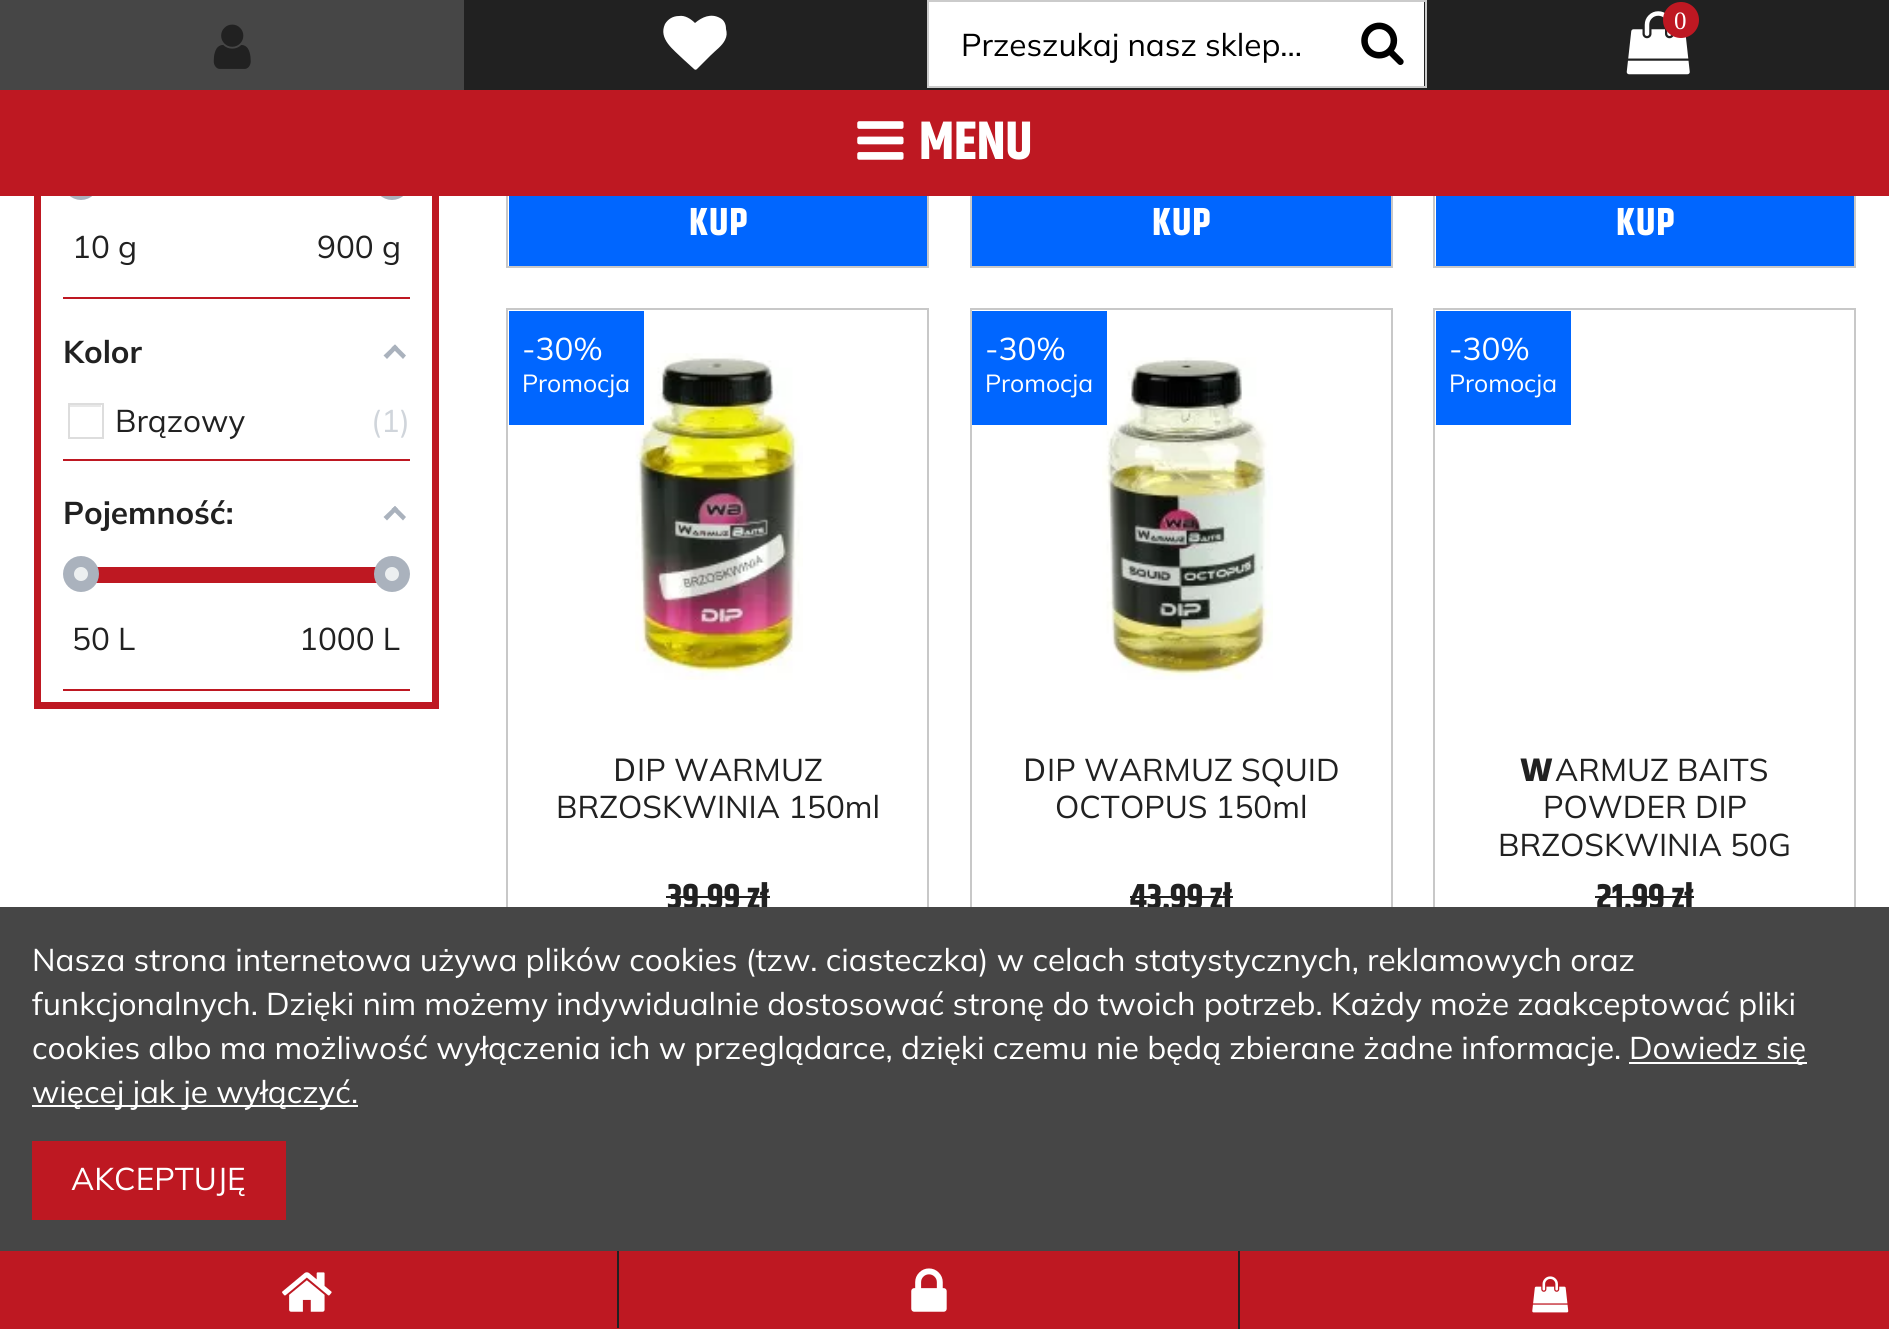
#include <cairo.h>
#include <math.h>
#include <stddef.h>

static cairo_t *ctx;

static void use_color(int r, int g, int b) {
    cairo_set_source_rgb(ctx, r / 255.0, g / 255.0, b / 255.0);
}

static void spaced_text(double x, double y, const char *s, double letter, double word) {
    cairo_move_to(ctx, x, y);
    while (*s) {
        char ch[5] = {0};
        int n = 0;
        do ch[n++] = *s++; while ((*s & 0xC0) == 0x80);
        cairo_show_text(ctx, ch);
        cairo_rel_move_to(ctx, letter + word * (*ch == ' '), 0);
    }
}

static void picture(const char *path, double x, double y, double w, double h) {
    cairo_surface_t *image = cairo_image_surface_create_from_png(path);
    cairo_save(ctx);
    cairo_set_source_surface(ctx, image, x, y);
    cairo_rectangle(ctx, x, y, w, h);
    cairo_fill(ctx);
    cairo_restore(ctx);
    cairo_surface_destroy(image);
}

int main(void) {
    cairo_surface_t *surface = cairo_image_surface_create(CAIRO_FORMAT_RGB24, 1889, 1329);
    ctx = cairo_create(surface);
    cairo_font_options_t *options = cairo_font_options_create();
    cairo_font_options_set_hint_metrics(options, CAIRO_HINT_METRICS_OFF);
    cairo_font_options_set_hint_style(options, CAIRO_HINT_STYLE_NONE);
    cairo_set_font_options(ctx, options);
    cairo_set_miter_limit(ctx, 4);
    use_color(255, 255, 255);
    cairo_paint(ctx);
    cairo_rectangle(ctx, 507, -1, 421, 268);
    use_color(200, 200, 200);
    cairo_stroke(ctx);
    cairo_rectangle(ctx, 971, -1, 421, 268);
    cairo_stroke(ctx);
    cairo_rectangle(ctx, 1434, -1, 421, 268);
    cairo_stroke(ctx);
    use_color(33, 33, 33);
    cairo_rectangle(ctx, 464, 0, 1425, 90);
    cairo_fill(ctx);
    cairo_rectangle(ctx, 37.5, -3.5, 398, 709);
    use_color(190, 24, 34);
    cairo_set_line_width(ctx, 7);
    cairo_stroke(ctx);
    use_color(70, 70, 70);
    cairo_rectangle(ctx, 0, 0, 464, 90);
    cairo_fill(ctx);
    picture("img1.png", 213, 24, 38, 45);
    use_color(255, 255, 255);
    cairo_new_path(ctx);
    cairo_move_to(ctx, 697, 69);
    cairo_curve_to(ctx, 696, 70, 695, 70, 694, 69);
    cairo_line_to(ctx, 683, 59);
    cairo_curve_to(ctx, 674, 50, 658, 39, 665, 24);
    cairo_curve_to(ctx, 668, 19, 673, 16, 679, 16);
    cairo_curve_to(ctx, 685, 15, 691, 19, 695, 23);
    cairo_curve_to(ctx, 702, 17, 711, 13, 720, 18);
    cairo_curve_to(ctx, 724, 20, 726, 24, 726, 29);
    cairo_curve_to(ctx, 727, 33, 727, 36, 725, 40);
    cairo_curve_to(ctx, 722, 46, 716, 50, 711, 55);
    cairo_close_path(ctx);
    cairo_fill(ctx);
    cairo_rectangle(ctx, 929, 2, 495, 84);
    cairo_fill(ctx);
    cairo_rectangle(ctx, 928, 1, 498, 86);
    use_color(203, 203, 203);
    cairo_set_line_width(ctx, 2);
    cairo_stroke(ctx);
    cairo_select_font_face(ctx, "Mulish", CAIRO_FONT_SLANT_NORMAL, CAIRO_FONT_WEIGHT_NORMAL);
    cairo_set_font_size(ctx, 31.5);
    use_color(0, 0, 0);
    cairo_move_to(ctx, 961, 56);
    cairo_show_text(ctx, "Przeszukaj nasz sklep...");
    picture("img2.png", 1361, 22, 43, 43);
    picture("img3.png", 1626, 11, 64, 64);
    use_color(190, 24, 34);
    cairo_arc(ctx, 1681, 20, 18, 0, 2 * M_PI);
    cairo_fill(ctx);
    cairo_select_font_face(ctx, "Liberation Serif", CAIRO_FONT_SLANT_NORMAL, CAIRO_FONT_WEIGHT_NORMAL);
    cairo_set_font_size(ctx, 25);
    use_color(255, 255, 255);
    cairo_move_to(ctx, 1674, 29);
    cairo_show_text(ctx, "0");
    cairo_new_path(ctx);
    cairo_arc(ctx, 81, 182, 12.5, 0, 2 * M_PI);
    use_color(170, 178, 189);
    cairo_set_line_width(ctx, 11);
    cairo_stroke(ctx);
    cairo_arc(ctx, 392, 182, 12.5, 0, 2 * M_PI);
    cairo_stroke(ctx);
    use_color(190, 24, 34);
    cairo_rectangle(ctx, 0, 90, 1889, 106);
    cairo_fill(ctx);
    picture("img4.png", 857, 121, 47, 39);
    cairo_select_font_face(ctx, "Khand", CAIRO_FONT_SLANT_NORMAL, CAIRO_FONT_WEIGHT_BOLD);
    cairo_set_font_size(ctx, 54);
    use_color(255, 255, 255);
    cairo_move_to(ctx, 919, 159);
    cairo_show_text(ctx, "MENU");
    use_color(190, 24, 34);
    cairo_rectangle(ctx, 63, 297, 347, 2);
    cairo_fill(ctx);
    cairo_select_font_face(ctx, "Mulish", CAIRO_FONT_SLANT_NORMAL, CAIRO_FONT_WEIGHT_NORMAL);
    cairo_set_font_size(ctx, 31.5);
    use_color(33, 33, 33);
    cairo_move_to(ctx, 72, 258);
    cairo_show_text(ctx, "10 g");
    cairo_move_to(ctx, 317, 258);
    cairo_show_text(ctx, "900 g");
    use_color(190, 24, 34);
    cairo_rectangle(ctx, 63, 459, 347, 2);
    cairo_fill(ctx);
    cairo_select_font_face(ctx, "Mulish", CAIRO_FONT_SLANT_NORMAL, CAIRO_FONT_WEIGHT_BOLD);
    use_color(33, 33, 33);
    cairo_move_to(ctx, 63, 363);
    cairo_show_text(ctx, "Kolor");
    use_color(170, 178, 189);
    cairo_new_path(ctx);
    cairo_move_to(ctx, 395, 344.5);
    cairo_line_to(ctx, 406, 355.5);
    cairo_line_to(ctx, 403, 359);
    cairo_line_to(ctx, 391.5, 347.5);
    cairo_close_path(ctx);
    cairo_fill(ctx);
    cairo_new_path(ctx);
    cairo_move_to(ctx, 395, 344.5);
    cairo_line_to(ctx, 398, 347.5);
    cairo_line_to(ctx, 387, 359);
    cairo_line_to(ctx, 383.5, 355.5);
    cairo_close_path(ctx);
    cairo_fill(ctx);
    use_color(232, 232, 232);
    cairo_rectangle(ctx, 70, 405, 31, 2);
    cairo_fill(ctx);
    cairo_rectangle(ctx, 69, 404, 34, 34);
    use_color(221, 221, 221);
    cairo_set_line_width(ctx, 2);
    cairo_stroke(ctx);
    cairo_select_font_face(ctx, "Mulish", CAIRO_FONT_SLANT_NORMAL, CAIRO_FONT_WEIGHT_NORMAL);
    use_color(33, 33, 33);
    cairo_move_to(ctx, 115, 432);
    cairo_show_text(ctx, "Brązowy");
    use_color(208, 213, 219);
    cairo_move_to(ctx, 371, 432);
    cairo_show_text(ctx, "(1)");
    use_color(190, 24, 34);
    cairo_rectangle(ctx, 63, 689, 347, 2);
    cairo_fill(ctx);
    cairo_select_font_face(ctx, "Mulish", CAIRO_FONT_SLANT_NORMAL, CAIRO_FONT_WEIGHT_BOLD);
    use_color(33, 33, 33);
    cairo_move_to(ctx, 63, 524);
    cairo_show_text(ctx, "Pojemność:");
    use_color(170, 178, 189);
    cairo_new_path(ctx);
    cairo_move_to(ctx, 395, 506);
    cairo_line_to(ctx, 406, 517);
    cairo_line_to(ctx, 403, 520.5);
    cairo_line_to(ctx, 391.5, 509);
    cairo_close_path(ctx);
    cairo_fill(ctx);
    cairo_new_path(ctx);
    cairo_move_to(ctx, 395, 506);
    cairo_line_to(ctx, 398, 509);
    cairo_line_to(ctx, 387, 520.5);
    cairo_line_to(ctx, 383.5, 517);
    cairo_close_path(ctx);
    cairo_fill(ctx);
    use_color(190, 24, 34);
    cairo_rectangle(ctx, 96, 567, 281, 16);
    cairo_fill(ctx);
    use_color(236, 239, 240);
    cairo_arc(ctx, 81, 574, 12.5, 0, 2 * M_PI);
    cairo_fill_preserve(ctx);
    use_color(170, 178, 189);
    cairo_set_line_width(ctx, 11);
    cairo_stroke(ctx);
    use_color(236, 239, 240);
    cairo_arc(ctx, 392, 574, 12.5, 0, 2 * M_PI);
    cairo_fill_preserve(ctx);
    use_color(170, 178, 189);
    cairo_stroke(ctx);
    cairo_select_font_face(ctx, "Mulish", CAIRO_FONT_SLANT_NORMAL, CAIRO_FONT_WEIGHT_NORMAL);
    use_color(33, 33, 33);
    cairo_move_to(ctx, 72, 650);
    cairo_show_text(ctx, "50 L");
    cairo_move_to(ctx, 299, 650);
    cairo_show_text(ctx, "1000 L");
    use_color(0, 102, 255);
    cairo_rectangle(ctx, 509, 196, 418, 70);
    cairo_fill(ctx);
    cairo_select_font_face(ctx, "Khand", CAIRO_FONT_SLANT_NORMAL, CAIRO_FONT_WEIGHT_BOLD);
    cairo_set_font_size(ctx, 39);
    use_color(255, 255, 255);
    spaced_text(689, 235, "KUP", 1, 0);
    use_color(0, 102, 255);
    cairo_rectangle(ctx, 972, 196, 419, 70);
    cairo_fill(ctx);
    use_color(255, 255, 255);
    spaced_text(1152, 235, "KUP", 1, 0);
    use_color(0, 102, 255);
    cairo_rectangle(ctx, 1436, 196, 418, 70);
    cairo_fill(ctx);
    use_color(255, 255, 255);
    spaced_text(1616, 235, "KUP", 1, 0);
    cairo_rectangle(ctx, 507, 309, 421, 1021);
    use_color(200, 200, 200);
    cairo_set_line_width(ctx, 2);
    cairo_stroke(ctx);
    picture("img5.png", 635, 353, 168, 327);
    use_color(0, 102, 255);
    cairo_rectangle(ctx, 509, 311, 135, 114);
    cairo_fill(ctx);
    cairo_select_font_face(ctx, "Mulish", CAIRO_FONT_SLANT_NORMAL, CAIRO_FONT_WEIGHT_NORMAL);
    cairo_set_font_size(ctx, 31.5);
    use_color(255, 255, 255);
    cairo_move_to(ctx, 522, 360);
    cairo_show_text(ctx, "-30%");
    cairo_set_font_size(ctx, 24.75);
    cairo_move_to(ctx, 522, 392);
    cairo_show_text(ctx, "Promocja");
    cairo_select_font_face(ctx, "Noto Sans", CAIRO_FONT_SLANT_NORMAL, CAIRO_FONT_WEIGHT_NORMAL);
    cairo_set_font_size(ctx, 31.5);
    use_color(33, 33, 33);
    cairo_move_to(ctx, 613, 781);
    cairo_show_text(ctx, "D");
    cairo_select_font_face(ctx, "Mulish", CAIRO_FONT_SLANT_NORMAL, CAIRO_FONT_WEIGHT_NORMAL);
    cairo_move_to(ctx, 637, 781);
    cairo_show_text(ctx, "IP WARMUZ");
    cairo_move_to(ctx, 556, 818);
    cairo_show_text(ctx, "BRZOSKWINIA 150ml");
    cairo_select_font_face(ctx, "Khand", CAIRO_FONT_SLANT_NORMAL, CAIRO_FONT_WEIGHT_BOLD);
    cairo_set_font_size(ctx, 36);
    cairo_move_to(ctx, 667, 909);
    cairo_show_text(ctx, "39,99 zł");
    cairo_rectangle(ctx, 666, 896, 104, 2);
    cairo_fill(ctx);
    cairo_rectangle(ctx, 971, 309, 421, 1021);
    use_color(200, 200, 200);
    cairo_stroke(ctx);
    picture("img6.png", 1102, 357, 171, 323);
    use_color(0, 102, 255);
    cairo_rectangle(ctx, 972, 311, 135, 114);
    cairo_fill(ctx);
    cairo_select_font_face(ctx, "Mulish", CAIRO_FONT_SLANT_NORMAL, CAIRO_FONT_WEIGHT_NORMAL);
    cairo_set_font_size(ctx, 31.5);
    use_color(255, 255, 255);
    cairo_move_to(ctx, 985, 360);
    cairo_show_text(ctx, "-30%");
    cairo_set_font_size(ctx, 24.75);
    cairo_move_to(ctx, 985, 392);
    cairo_show_text(ctx, "Promocja");
    cairo_select_font_face(ctx, "Noto Sans", CAIRO_FONT_SLANT_NORMAL, CAIRO_FONT_WEIGHT_NORMAL);
    cairo_set_font_size(ctx, 31.5);
    use_color(33, 33, 33);
    cairo_move_to(ctx, 1023, 781);
    cairo_show_text(ctx, "D");
    cairo_select_font_face(ctx, "Mulish", CAIRO_FONT_SLANT_NORMAL, CAIRO_FONT_WEIGHT_NORMAL);
    cairo_move_to(ctx, 1047, 781);
    cairo_show_text(ctx, "IP WARMUZ SQUID");
    cairo_move_to(ctx, 1055, 818);
    cairo_show_text(ctx, "OCTOPUS 150ml");
    cairo_select_font_face(ctx, "Khand", CAIRO_FONT_SLANT_NORMAL, CAIRO_FONT_WEIGHT_BOLD);
    cairo_set_font_size(ctx, 36);
    cairo_move_to(ctx, 1130, 909);
    cairo_show_text(ctx, "43,99 zł");
    cairo_rectangle(ctx, 1130, 896, 103, 2);
    cairo_fill(ctx);
    cairo_rectangle(ctx, 1434, 309, 421, 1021);
    use_color(200, 200, 200);
    cairo_stroke(ctx);
    use_color(0, 102, 255);
    cairo_rectangle(ctx, 1436, 311, 135, 114);
    cairo_fill(ctx);
    cairo_select_font_face(ctx, "Mulish", CAIRO_FONT_SLANT_NORMAL, CAIRO_FONT_WEIGHT_NORMAL);
    cairo_set_font_size(ctx, 31.5);
    use_color(255, 255, 255);
    cairo_move_to(ctx, 1449, 360);
    cairo_show_text(ctx, "-30%");
    cairo_set_font_size(ctx, 24.75);
    cairo_move_to(ctx, 1449, 392);
    cairo_show_text(ctx, "Promocja");
    cairo_select_font_face(ctx, "Noto Sans Black", CAIRO_FONT_SLANT_NORMAL, CAIRO_FONT_WEIGHT_NORMAL);
    cairo_set_font_size(ctx, 31.5);
    use_color(33, 33, 33);
    cairo_move_to(ctx, 1520, 781);
    cairo_show_text(ctx, "W");
    cairo_select_font_face(ctx, "Mulish", CAIRO_FONT_SLANT_NORMAL, CAIRO_FONT_WEIGHT_NORMAL);
    cairo_move_to(ctx, 1555, 781);
    cairo_show_text(ctx, "ARMUZ BAITS");
    cairo_move_to(ctx, 1543, 818);
    cairo_show_text(ctx, "POWDER DIP");
    cairo_move_to(ctx, 1498, 856);
    cairo_show_text(ctx, "BRZOSKWINIA 50G");
    cairo_select_font_face(ctx, "Khand", CAIRO_FONT_SLANT_NORMAL, CAIRO_FONT_WEIGHT_BOLD);
    cairo_set_font_size(ctx, 36);
    cairo_move_to(ctx, 1596, 909);
    cairo_show_text(ctx, "21,99 zł");
    cairo_rectangle(ctx, 1595, 896, 99, 2);
    cairo_fill(ctx);
    use_color(190, 24, 34);
    cairo_rectangle(ctx, 0, 1251, 1889, 78);
    cairo_fill(ctx);
    picture("img7.png", 282, 1272, 50, 40);
    use_color(33, 33, 33);
    cairo_rectangle(ctx, 617, 1247, 2, 81);
    cairo_fill(ctx);
    picture("img8.png", 911, 1268, 36, 44);
    cairo_rectangle(ctx, 1238, 1249, 2, 80);
    cairo_fill(ctx);
    picture("img9.png", 1532, 1276, 37, 37);
    use_color(70, 70, 70);
    cairo_rectangle(ctx, 0, 907, 1889, 344);
    cairo_fill(ctx);
    cairo_select_font_face(ctx, "Mulish", CAIRO_FONT_SLANT_NORMAL, CAIRO_FONT_WEIGHT_NORMAL);
    cairo_set_font_size(ctx, 31.5);
    use_color(255, 255, 255);
    cairo_move_to(ctx, 32, 971);
    cairo_show_text(ctx, "Nasza strona internetowa używa plików cookies (tzw. ciasteczka) w celach statystycznych, reklamowych oraz");
    cairo_move_to(ctx, 32, 1015);
    cairo_show_text(ctx, "funkcjonalnych. Dzięki nim możemy indywidualnie dostosować stronę do twoich potrzeb. Każdy może zaakceptować pliki");
    cairo_move_to(ctx, 32, 1059);
    cairo_show_text(ctx, "cookies albo ma możliwość wyłączenia ich w przeglądarce, dzięki czemu nie będą zbierane żadne informacje.");
    cairo_rectangle(ctx, 1629, 1062, 178, 2);
    cairo_fill(ctx);
    cairo_move_to(ctx, 1629, 1059);
    cairo_show_text(ctx, "Dowiedz się");
    cairo_rectangle(ctx, 32, 1105, 326, 2);
    cairo_fill(ctx);
    cairo_move_to(ctx, 32, 1103);
    cairo_show_text(ctx, "więcej jak je wyłączyć.");
    use_color(190, 24, 34);
    cairo_rectangle(ctx, 32, 1141, 254, 79);
    cairo_fill(ctx);
    use_color(255, 255, 255);
    cairo_move_to(ctx, 71, 1190);
    cairo_show_text(ctx, "AKCEPTUJĘ");
    cairo_surface_write_to_png(surface, "result.png");
    cairo_font_options_destroy(options);
    cairo_destroy(ctx);
    cairo_surface_destroy(surface);
    return 0;
}
